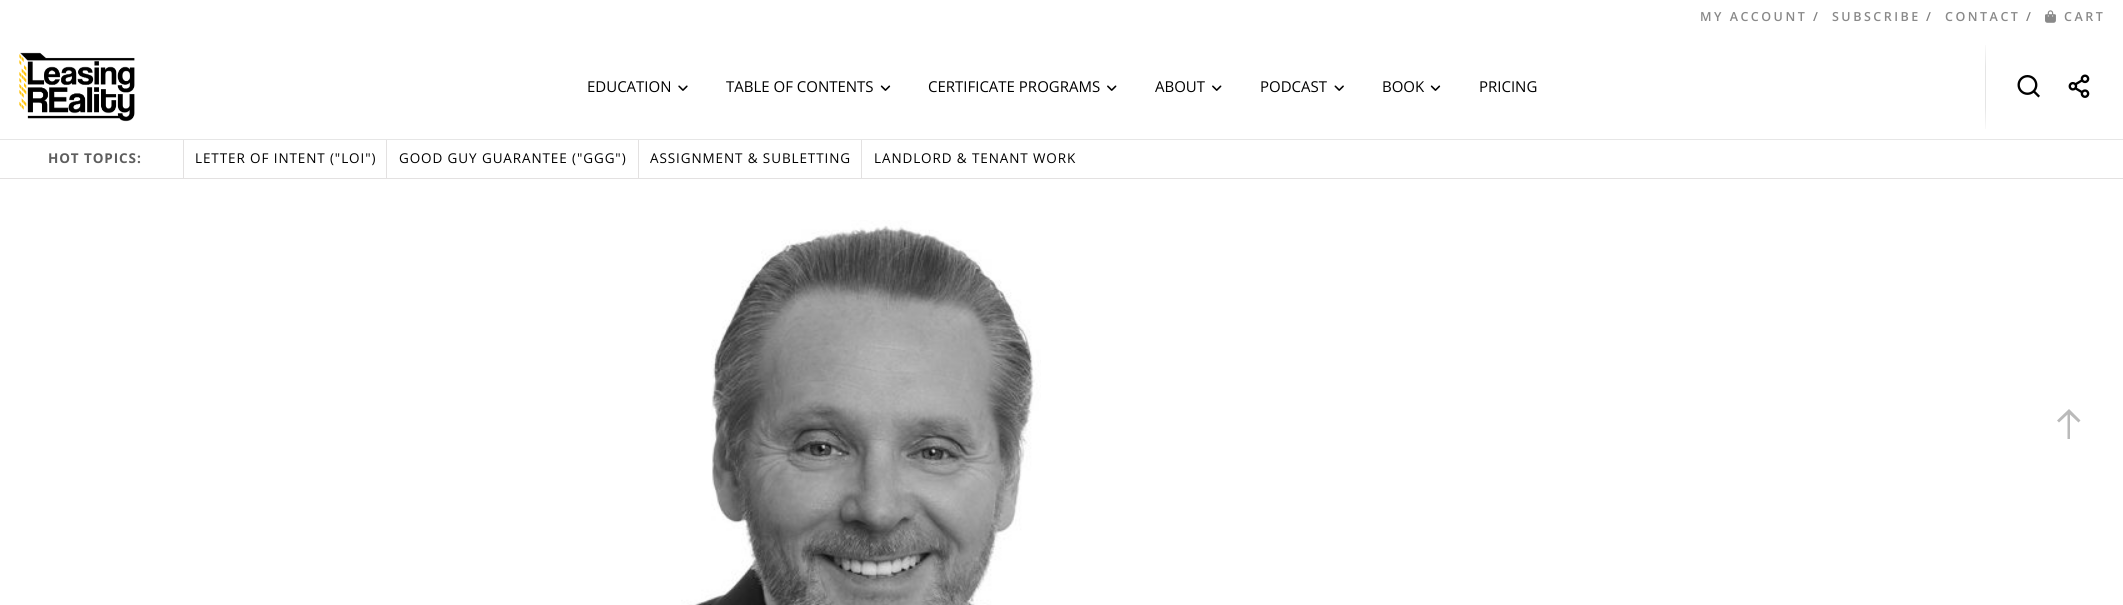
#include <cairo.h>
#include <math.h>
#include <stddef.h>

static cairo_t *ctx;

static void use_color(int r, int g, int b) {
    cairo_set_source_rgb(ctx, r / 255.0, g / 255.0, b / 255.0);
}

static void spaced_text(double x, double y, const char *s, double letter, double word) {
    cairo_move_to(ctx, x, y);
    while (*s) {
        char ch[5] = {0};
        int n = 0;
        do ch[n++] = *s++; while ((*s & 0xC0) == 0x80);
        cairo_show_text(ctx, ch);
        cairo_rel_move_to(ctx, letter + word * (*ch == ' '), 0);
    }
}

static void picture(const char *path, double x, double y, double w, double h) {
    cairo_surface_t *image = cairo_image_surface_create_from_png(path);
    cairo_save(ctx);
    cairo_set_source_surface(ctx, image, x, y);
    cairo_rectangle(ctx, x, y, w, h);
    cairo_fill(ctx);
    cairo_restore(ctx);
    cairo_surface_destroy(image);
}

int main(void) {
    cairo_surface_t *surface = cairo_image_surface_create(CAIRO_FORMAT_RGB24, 2123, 605);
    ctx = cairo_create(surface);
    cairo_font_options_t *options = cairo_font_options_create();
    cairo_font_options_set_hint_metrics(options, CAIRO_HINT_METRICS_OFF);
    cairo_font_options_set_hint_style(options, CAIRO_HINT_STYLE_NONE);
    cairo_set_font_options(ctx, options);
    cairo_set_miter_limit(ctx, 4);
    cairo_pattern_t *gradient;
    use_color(255, 255, 255);
    cairo_paint(ctx);
    cairo_select_font_face(ctx, "Open Sans SemiBold", CAIRO_FONT_SLANT_NORMAL, CAIRO_FONT_WEIGHT_NORMAL);
    cairo_set_font_size(ctx, 12.5);
    use_color(137, 137, 137);
    spaced_text(1700, 21, "MY ACCOUNT", 2.5, 0);
    use_color(128, 128, 128);
    spaced_text(1813, 21, "/", 2.5, 0);
    use_color(137, 137, 137);
    spaced_text(1832, 21, "SUBSCRIBE", 2.5, 0);
    use_color(128, 128, 128);
    spaced_text(1926, 21, "/", 2.5, 0);
    use_color(137, 137, 137);
    spaced_text(1945, 21, "CONTACT", 2.5, 0);
    use_color(128, 128, 128);
    spaced_text(2026, 21, "/", 2.5, 0);
    picture("img1.png", 2045, 10, 11, 13);
    use_color(137, 137, 137);
    spaced_text(2064, 21, "CART", 2.5, 0);
    use_color(230, 230, 230);
    cairo_rectangle(ctx, 0, 139, 2123, 1);
    cairo_fill(ctx);
    picture("img2.png", 19, 52, 116, 70);
    cairo_select_font_face(ctx, "Open Sans", CAIRO_FONT_SLANT_NORMAL, CAIRO_FONT_WEIGHT_NORMAL);
    cairo_set_font_size(ctx, 15);
    use_color(0, 0, 0);
    cairo_move_to(ctx, 587, 92);
    cairo_show_text(ctx, "EDUCATION");
    picture("img3.png", 678, 85, 10, 6);
    cairo_move_to(ctx, 726, 92);
    cairo_show_text(ctx, "TABLE OF CONTENTS");
    picture("img4.png", 880, 85, 11, 6);
    cairo_move_to(ctx, 928, 92);
    cairo_show_text(ctx, "CERTIFICATE PROGRAMS");
    picture("img5.png", 1107, 85, 10, 6);
    cairo_move_to(ctx, 1155, 92);
    cairo_show_text(ctx, "ABOUT");
    picture("img5.png", 1212, 85, 10, 6);
    cairo_move_to(ctx, 1260, 92);
    cairo_show_text(ctx, "PODCAST");
    picture("img6.png", 1334, 85, 10, 6);
    cairo_move_to(ctx, 1382, 92);
    cairo_show_text(ctx, "BOOK");
    picture("img4.png", 1430, 85, 11, 6);
    cairo_move_to(ctx, 1479, 92);
    cairo_show_text(ctx, "PRICING");
    gradient = cairo_pattern_create_linear(1986, 34, 1986, 140);
    cairo_pattern_add_color_stop_rgba(gradient, 0.05, 0, 0, 0, 0);
    cairo_pattern_add_color_stop_rgba(gradient, 0.3, 0, 0, 0, 0.1);
    cairo_pattern_add_color_stop_rgba(gradient, 0.7, 0, 0, 0, 0.1);
    cairo_pattern_add_color_stop_rgba(gradient, 0.95, 0, 0, 0, 0);
    cairo_set_source(ctx, gradient);
    cairo_pattern_destroy(gradient);
    cairo_rectangle(ctx, 1985, 45, 1, 84);
    cairo_fill(ctx);
    picture("img7.png", 2017, 75, 23, 23);
    picture("img8.png", 2068, 74, 22, 24);
    use_color(227, 225, 225);
    cairo_rectangle(ctx, 0, 178, 2123, 1);
    cairo_fill(ctx);
    cairo_rectangle(ctx, 183, 140, 1, 38);
    cairo_fill(ctx);
    cairo_select_font_face(ctx, "Open Sans", CAIRO_FONT_SLANT_NORMAL, CAIRO_FONT_WEIGHT_BOLD);
    cairo_set_font_size(ctx, 13.5);
    use_color(94, 94, 94);
    spaced_text(48, 163, "HOT TOPICS:", 0.9, 0);
    use_color(227, 225, 225);
    cairo_rectangle(ctx, 386, 140, 1, 38);
    cairo_fill(ctx);
    cairo_select_font_face(ctx, "Open Sans", CAIRO_FONT_SLANT_NORMAL, CAIRO_FONT_WEIGHT_NORMAL);
    use_color(0, 0, 0);
    spaced_text(195, 163, "LETTER OF INTENT (\"LOI\")", 0.9, 0);
    use_color(227, 225, 225);
    cairo_rectangle(ctx, 638, 140, 1, 38);
    cairo_fill(ctx);
    use_color(0, 0, 0);
    spaced_text(399, 163, "GOOD GUY GUARANTEE (\"GGG\")", 0.9, 0);
    use_color(227, 225, 225);
    cairo_rectangle(ctx, 861, 140, 1, 38);
    cairo_fill(ctx);
    use_color(0, 0, 0);
    spaced_text(650, 163, "ASSIGNMENT & SUBLETTING", 0.9, 0);
    spaced_text(874, 163, "LANDLORD & TENANT WORK", 0.9, 0);
    picture("img9.png", 681, 220, 360, 385);
    use_color(186, 186, 186);
    cairo_new_path(ctx);
    cairo_move_to(ctx, 2070, 439);
    cairo_line_to(ctx, 2070, 414.5);
    cairo_line_to(ctx, 2078.5, 422.5);
    cairo_line_to(ctx, 2080.5, 420.5);
    cairo_line_to(ctx, 2069, 409);
    cairo_line_to(ctx, 2057, 420.5);
    cairo_line_to(ctx, 2059, 422.5);
    cairo_line_to(ctx, 2067.5, 414.5);
    cairo_line_to(ctx, 2067.5, 439);
    cairo_close_path(ctx);
    cairo_fill(ctx);
    cairo_surface_write_to_png(surface, "result.png");
    cairo_font_options_destroy(options);
    cairo_destroy(ctx);
    cairo_surface_destroy(surface);
    return 0;
}
